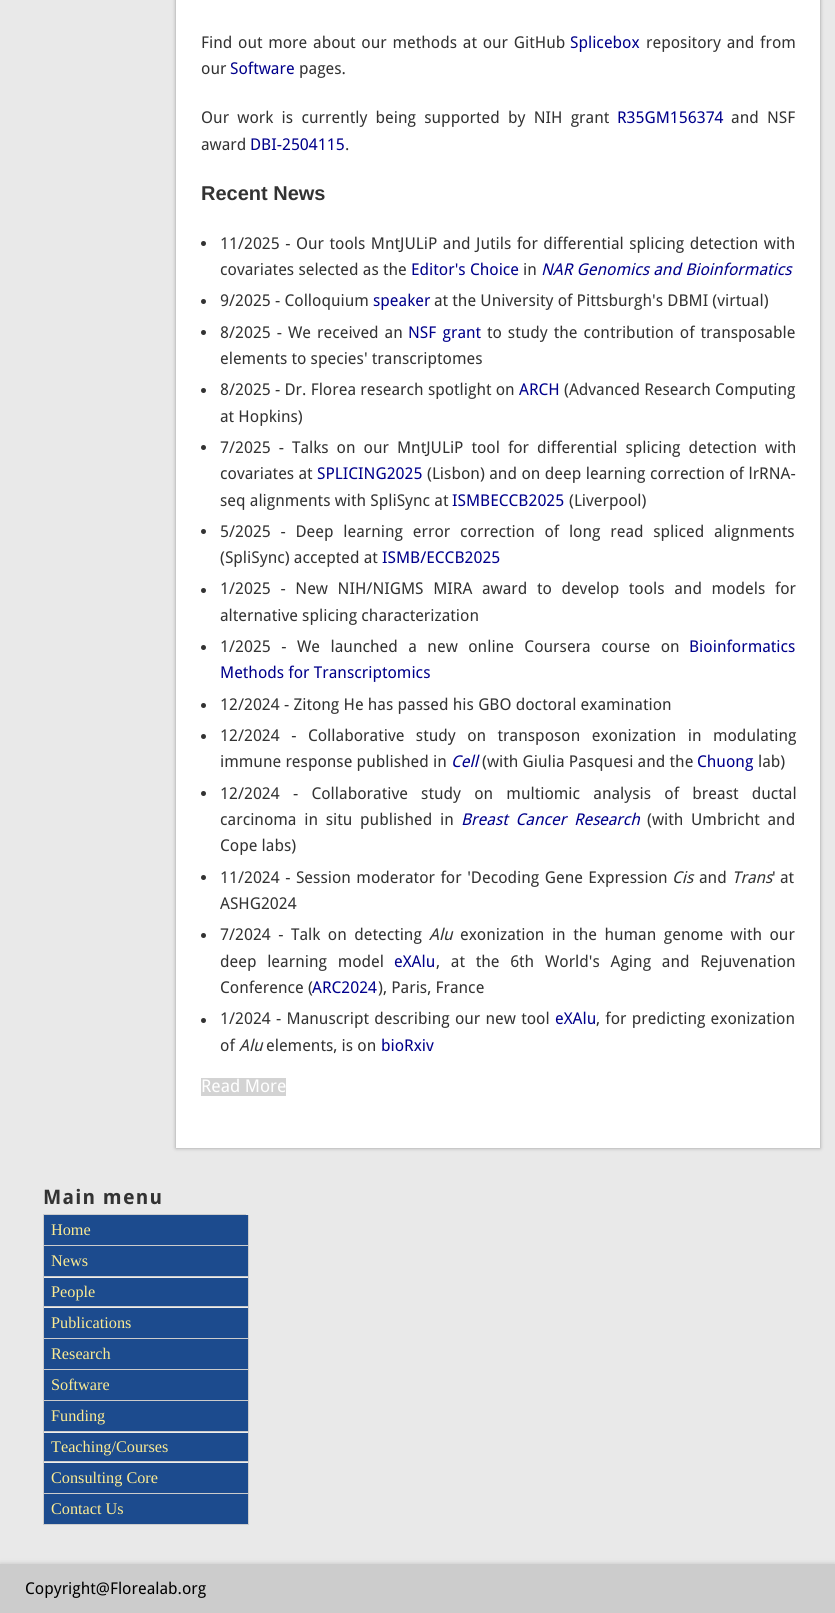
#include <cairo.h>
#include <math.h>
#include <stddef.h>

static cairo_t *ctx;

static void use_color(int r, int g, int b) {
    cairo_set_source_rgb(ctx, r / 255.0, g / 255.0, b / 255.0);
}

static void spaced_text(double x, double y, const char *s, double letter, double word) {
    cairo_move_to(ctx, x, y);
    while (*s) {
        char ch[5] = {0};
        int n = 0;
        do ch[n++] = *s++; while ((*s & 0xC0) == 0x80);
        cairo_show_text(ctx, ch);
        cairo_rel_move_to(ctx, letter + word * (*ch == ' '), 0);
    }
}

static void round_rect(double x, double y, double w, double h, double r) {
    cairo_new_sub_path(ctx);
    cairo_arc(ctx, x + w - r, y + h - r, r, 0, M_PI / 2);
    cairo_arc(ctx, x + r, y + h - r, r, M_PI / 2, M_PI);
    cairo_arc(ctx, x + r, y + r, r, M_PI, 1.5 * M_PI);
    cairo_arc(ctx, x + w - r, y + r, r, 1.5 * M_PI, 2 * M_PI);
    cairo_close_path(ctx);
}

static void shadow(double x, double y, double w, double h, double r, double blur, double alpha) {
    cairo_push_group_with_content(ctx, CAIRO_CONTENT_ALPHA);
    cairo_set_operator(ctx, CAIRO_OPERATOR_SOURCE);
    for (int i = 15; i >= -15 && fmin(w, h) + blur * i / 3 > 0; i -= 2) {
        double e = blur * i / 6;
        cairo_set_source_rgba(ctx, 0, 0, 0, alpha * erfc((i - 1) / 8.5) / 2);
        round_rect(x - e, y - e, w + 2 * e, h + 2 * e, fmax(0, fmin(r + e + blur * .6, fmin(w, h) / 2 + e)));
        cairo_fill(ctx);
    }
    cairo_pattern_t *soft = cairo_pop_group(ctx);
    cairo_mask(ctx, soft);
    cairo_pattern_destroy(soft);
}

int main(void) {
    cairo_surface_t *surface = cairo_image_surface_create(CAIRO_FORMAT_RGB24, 835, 1613);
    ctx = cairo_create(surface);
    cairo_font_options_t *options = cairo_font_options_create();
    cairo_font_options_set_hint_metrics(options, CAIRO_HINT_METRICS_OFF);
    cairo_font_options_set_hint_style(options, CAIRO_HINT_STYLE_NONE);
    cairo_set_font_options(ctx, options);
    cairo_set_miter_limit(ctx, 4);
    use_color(233, 233, 233);
    cairo_paint(ctx);
    use_color(153, 153, 153);
    shadow(176, -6, 644, 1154, 0, 2, 1);
    use_color(255, 255, 255);
    cairo_rectangle(ctx, 176, 0, 644, 1148);
    cairo_fill(ctx);
    cairo_select_font_face(ctx, "Droid Sans", CAIRO_FONT_SLANT_NORMAL, CAIRO_FONT_WEIGHT_NORMAL);
    cairo_set_font_size(ctx, 16.25);
    use_color(51, 51, 51);
    spaced_text(201, 48, "Find out more about our methods at our GitHub", 0, 1.5);
    use_color(0, 0, 139);
    cairo_move_to(ctx, 570, 48);
    cairo_show_text(ctx, "Splicebox");
    use_color(51, 51, 51);
    spaced_text(646, 48, "repository and from", 0, 1.5);
    cairo_move_to(ctx, 201, 74);
    cairo_show_text(ctx, "our");
    use_color(0, 0, 139);
    cairo_move_to(ctx, 230, 74);
    cairo_show_text(ctx, "Software");
    use_color(51, 51, 51);
    cairo_move_to(ctx, 299, 74);
    cairo_show_text(ctx, "pages.");
    spaced_text(201, 123, "Our work is currently being supported by NIH grant", 0, 4);
    use_color(0, 0, 139);
    cairo_move_to(ctx, 617, 123);
    cairo_show_text(ctx, "R35GM156374");
    use_color(51, 51, 51);
    spaced_text(731, 123, "and NSF", 0, 4);
    cairo_move_to(ctx, 201, 150);
    cairo_show_text(ctx, "award");
    use_color(0, 0, 139);
    cairo_move_to(ctx, 250, 150);
    cairo_show_text(ctx, "DBI-2504115");
    use_color(51, 51, 51);
    cairo_move_to(ctx, 345, 150);
    cairo_show_text(ctx, ".");
    cairo_select_font_face(ctx, "Liberation Sans", CAIRO_FONT_SLANT_NORMAL, CAIRO_FONT_WEIGHT_BOLD);
    cairo_set_font_size(ctx, 20);
    cairo_move_to(ctx, 201, 200);
    cairo_show_text(ctx, "Recent News");
    cairo_new_path(ctx);
    cairo_arc(ctx, 203.5, 243.5, 2.5, 0, 2 * M_PI);
    cairo_fill(ctx);
    cairo_select_font_face(ctx, "Droid Sans", CAIRO_FONT_SLANT_NORMAL, CAIRO_FONT_WEIGHT_NORMAL);
    cairo_set_font_size(ctx, 16.25);
    spaced_text(220, 249, "11/2025 - Our tools MntJULiP and Jutils for differential splicing detection with", 0, 1.25);
    cairo_move_to(ctx, 220, 275);
    cairo_show_text(ctx, "covariates selected as the");
    use_color(0, 0, 139);
    cairo_move_to(ctx, 411, 275);
    cairo_show_text(ctx, "Editor's Choice");
    use_color(51, 51, 51);
    cairo_move_to(ctx, 523, 275);
    cairo_show_text(ctx, "in");
    cairo_select_font_face(ctx, "Droid Sans", CAIRO_FONT_SLANT_ITALIC, CAIRO_FONT_WEIGHT_NORMAL);
    use_color(0, 0, 139);
    cairo_move_to(ctx, 541, 275);
    cairo_show_text(ctx, "NAR Genomics and Bioinformatics");
    use_color(51, 51, 51);
    cairo_new_path(ctx);
    cairo_arc(ctx, 203.5, 301.5, 2.5, 0, 2 * M_PI);
    cairo_fill(ctx);
    cairo_select_font_face(ctx, "Droid Sans", CAIRO_FONT_SLANT_NORMAL, CAIRO_FONT_WEIGHT_NORMAL);
    cairo_move_to(ctx, 220, 306);
    cairo_show_text(ctx, "9/2025 - Colloquium");
    use_color(0, 0, 139);
    cairo_move_to(ctx, 373, 306);
    cairo_show_text(ctx, "speaker");
    use_color(51, 51, 51);
    cairo_move_to(ctx, 434, 306);
    cairo_show_text(ctx, "at the University of Pittsburgh's DBMI (virtual)");
    cairo_new_path(ctx);
    cairo_arc(ctx, 203.5, 332.5, 2.5, 0, 2 * M_PI);
    cairo_fill(ctx);
    spaced_text(220, 338, "8/2025 - We received an", 0, 1.75);
    use_color(0, 0, 139);
    spaced_text(408, 338, "NSF grant", 0, 2);
    use_color(51, 51, 51);
    spaced_text(487, 338, "to study the contribution of transposable", 0, 1.75);
    cairo_move_to(ctx, 220, 364);
    cairo_show_text(ctx, "elements to species' transcriptomes");
    cairo_new_path(ctx);
    cairo_arc(ctx, 203.5, 390.5, 2.5, 0, 2 * M_PI);
    cairo_fill(ctx);
    cairo_move_to(ctx, 220, 395);
    cairo_show_text(ctx, "8/2025 - Dr. Florea research spotlight on");
    use_color(0, 0, 139);
    cairo_move_to(ctx, 519, 395);
    cairo_show_text(ctx, "ARCH");
    use_color(51, 51, 51);
    cairo_move_to(ctx, 564, 395);
    cairo_show_text(ctx, "(Advanced Research Computing");
    cairo_move_to(ctx, 220, 422);
    cairo_show_text(ctx, "at Hopkins)");
    cairo_new_path(ctx);
    cairo_arc(ctx, 203.5, 447.5, 2.5, 0, 2 * M_PI);
    cairo_fill(ctx);
    spaced_text(220, 453, "7/2025 - Talks on our MntJULiP tool for differential splicing detection with", 0, 3.75);
    cairo_move_to(ctx, 220, 479);
    cairo_show_text(ctx, "covariates at");
    use_color(0, 0, 139);
    cairo_move_to(ctx, 317, 479);
    cairo_show_text(ctx, "SPLICING2025");
    use_color(51, 51, 51);
    spaced_text(427, 479, "(Lisbon) and on deep learning correction of lrRNA-", 0, 0.25);
    cairo_move_to(ctx, 220, 506);
    cairo_show_text(ctx, "seq alignments with SpliSync at");
    use_color(0, 0, 139);
    cairo_move_to(ctx, 452, 506);
    cairo_show_text(ctx, "ISMBECCB2025");
    use_color(51, 51, 51);
    cairo_move_to(ctx, 569, 506);
    cairo_show_text(ctx, "(Liverpool)");
    cairo_new_path(ctx);
    cairo_arc(ctx, 203.5, 531.5, 2.5, 0, 2 * M_PI);
    cairo_fill(ctx);
    spaced_text(220, 537, "5/2025 - Deep learning error correction of long read spliced alignments", 0, 5.5);
    cairo_move_to(ctx, 220, 563);
    cairo_show_text(ctx, "(SpliSync) accepted at");
    use_color(0, 0, 139);
    cairo_move_to(ctx, 382, 563);
    cairo_show_text(ctx, "ISMB/ECCB2025");
    use_color(51, 51, 51);
    cairo_new_path(ctx);
    cairo_arc(ctx, 203.5, 590.5, 2.5, 0, 2 * M_PI);
    cairo_fill(ctx);
    spaced_text(220, 594, "1/2025 - New NIH/NIGMS MIRA award to develop tools and models for", 0, 5.4);
    cairo_move_to(ctx, 220, 621);
    cairo_show_text(ctx, "alternative splicing characterization");
    cairo_new_path(ctx);
    cairo_arc(ctx, 203.5, 647.5, 2.5, 0, 2 * M_PI);
    cairo_fill(ctx);
    spaced_text(220, 652, "1/2025 - We launched a new online Coursera course on", 0, 6.25);
    use_color(0, 0, 139);
    cairo_move_to(ctx, 689, 652);
    cairo_show_text(ctx, "Bioinformatics");
    cairo_move_to(ctx, 220, 678);
    cairo_show_text(ctx, "Methods for Transcriptomics");
    use_color(51, 51, 51);
    cairo_new_path(ctx);
    cairo_arc(ctx, 203.5, 705.5, 2.5, 0, 2 * M_PI);
    cairo_fill(ctx);
    cairo_move_to(ctx, 220, 710);
    cairo_show_text(ctx, "12/2024 - Zitong He has passed his GBO doctoral examination");
    cairo_new_path(ctx);
    cairo_arc(ctx, 203.5, 736.5, 2.5, 0, 2 * M_PI);
    cairo_fill(ctx);
    spaced_text(220, 741, "12/2024 - Collaborative study on transposon exonization in modulating", 0, 7.25);
    cairo_move_to(ctx, 220, 767);
    cairo_show_text(ctx, "immune response published in");
    cairo_select_font_face(ctx, "Droid Sans", CAIRO_FONT_SLANT_ITALIC, CAIRO_FONT_WEIGHT_NORMAL);
    use_color(0, 0, 139);
    cairo_move_to(ctx, 451, 767);
    cairo_show_text(ctx, "Cell");
    cairo_select_font_face(ctx, "Droid Sans", CAIRO_FONT_SLANT_NORMAL, CAIRO_FONT_WEIGHT_NORMAL);
    use_color(51, 51, 51);
    cairo_move_to(ctx, 482, 767);
    cairo_show_text(ctx, "(with Giulia Pasquesi and the");
    use_color(0, 0, 139);
    cairo_move_to(ctx, 697, 767);
    cairo_show_text(ctx, "Chuong");
    use_color(51, 51, 51);
    cairo_move_to(ctx, 758, 767);
    cairo_show_text(ctx, "lab)");
    cairo_new_path(ctx);
    cairo_arc(ctx, 203.5, 793.5, 2.5, 0, 2 * M_PI);
    cairo_fill(ctx);
    spaced_text(220, 799, "12/2024 - Collaborative study on multiomic analysis of breast ductal", 0, 9);
    spaced_text(220, 825, "carcinoma in situ published in", 0, 3.5);
    cairo_select_font_face(ctx, "Droid Sans", CAIRO_FONT_SLANT_ITALIC, CAIRO_FONT_WEIGHT_NORMAL);
    use_color(0, 0, 139);
    spaced_text(461, 825, "Breast Cancer Res", 0, 3.5);
    cairo_move_to(ctx, 599, 825);
    cairo_show_text(ctx, "earch");
    cairo_select_font_face(ctx, "Droid Sans", CAIRO_FONT_SLANT_NORMAL, CAIRO_FONT_WEIGHT_NORMAL);
    use_color(51, 51, 51);
    spaced_text(647, 825, "(with Umbricht and", 0, 3.5);
    cairo_move_to(ctx, 220, 851);
    cairo_show_text(ctx, "Cope labs)");
    cairo_new_path(ctx);
    cairo_arc(ctx, 203.5, 877.5, 2.5, 0, 2 * M_PI);
    cairo_fill(ctx);
    spaced_text(220, 883, "11/2024 - Session moderator for 'Decoding Gene Expression", 0, 1.25);
    cairo_select_font_face(ctx, "Droid Sans", CAIRO_FONT_SLANT_ITALIC, CAIRO_FONT_WEIGHT_NORMAL);
    cairo_move_to(ctx, 672, 883);
    cairo_show_text(ctx, "Cis");
    cairo_select_font_face(ctx, "Droid Sans", CAIRO_FONT_SLANT_NORMAL, CAIRO_FONT_WEIGHT_NORMAL);
    cairo_move_to(ctx, 699, 883);
    cairo_show_text(ctx, "and");
    cairo_select_font_face(ctx, "Droid Sans", CAIRO_FONT_SLANT_ITALIC, CAIRO_FONT_WEIGHT_NORMAL);
    cairo_move_to(ctx, 732, 883);
    cairo_show_text(ctx, "Trans");
    cairo_select_font_face(ctx, "Droid Sans", CAIRO_FONT_SLANT_NORMAL, CAIRO_FONT_WEIGHT_NORMAL);
    cairo_move_to(ctx, 772, 883);
    cairo_show_text(ctx, "' at");
    cairo_move_to(ctx, 220, 909);
    cairo_show_text(ctx, "ASHG2024");
    cairo_new_path(ctx);
    cairo_arc(ctx, 203.5, 935.5, 2.5, 0, 2 * M_PI);
    cairo_fill(ctx);
    spaced_text(220, 940, "7/2024 - Talk on detecting", 0, 3.25);
    cairo_select_font_face(ctx, "Droid Sans", CAIRO_FONT_SLANT_ITALIC, CAIRO_FONT_WEIGHT_NORMAL);
    cairo_move_to(ctx, 429, 940);
    cairo_show_text(ctx, "Alu");
    cairo_select_font_face(ctx, "Droid Sans", CAIRO_FONT_SLANT_NORMAL, CAIRO_FONT_WEIGHT_NORMAL);
    spaced_text(460, 940, "exonization in the human genome with our", 0, 3.25);
    spaced_text(220, 967, "deep learning model", 0, 6.5);
    use_color(0, 0, 139);
    cairo_move_to(ctx, 394, 967);
    cairo_show_text(ctx, "eXAlu");
    use_color(51, 51, 51);
    spaced_text(436, 967, ", at the 6th World's Aging and Rejuvenation", 0, 6.5);
    cairo_move_to(ctx, 220, 993);
    cairo_show_text(ctx, "Conference (");
    use_color(0, 0, 139);
    cairo_move_to(ctx, 312, 993);
    cairo_show_text(ctx, "ARC2024");
    use_color(51, 51, 51);
    cairo_move_to(ctx, 378, 993);
    cairo_show_text(ctx, "), Paris, France");
    cairo_new_path(ctx);
    cairo_arc(ctx, 203.5, 1020.5, 2.5, 0, 2 * M_PI);
    cairo_fill(ctx);
    spaced_text(220, 1024, "1/2024 - Manuscript describing our new tool", 0, 1);
    use_color(0, 0, 139);
    cairo_move_to(ctx, 555, 1024);
    cairo_show_text(ctx, "eXAlu");
    use_color(51, 51, 51);
    spaced_text(596, 1024, ", for predicting exonization", 0, 1);
    cairo_move_to(ctx, 220, 1051);
    cairo_show_text(ctx, "of");
    cairo_select_font_face(ctx, "Droid Sans", CAIRO_FONT_SLANT_ITALIC, CAIRO_FONT_WEIGHT_NORMAL);
    cairo_move_to(ctx, 239, 1051);
    cairo_show_text(ctx, "Alu");
    cairo_select_font_face(ctx, "Droid Sans", CAIRO_FONT_SLANT_NORMAL, CAIRO_FONT_WEIGHT_NORMAL);
    cairo_move_to(ctx, 266, 1051);
    cairo_show_text(ctx, "elements, is on");
    use_color(0, 0, 139);
    cairo_move_to(ctx, 381, 1051);
    cairo_show_text(ctx, "bioRxiv");
    use_color(211, 211, 211);
    cairo_rectangle(ctx, 201, 1078, 85, 18);
    cairo_fill(ctx);
    cairo_set_font_size(ctx, 17.5);
    use_color(255, 255, 255);
    cairo_move_to(ctx, 201, 1092);
    cairo_show_text(ctx, "Read More");
    cairo_select_font_face(ctx, "Droid Sans", CAIRO_FONT_SLANT_NORMAL, CAIRO_FONT_WEIGHT_BOLD);
    cairo_set_font_size(ctx, 20);
    use_color(51, 51, 51);
    spaced_text(43, 1204, "Main menu", 1.25, 0);
    use_color(204, 204, 204);
    cairo_rectangle(ctx, 43, 1214, 203, 1);
    cairo_fill(ctx);
    cairo_rectangle(ctx, 248, 1215, 1, 310);
    cairo_fill(ctx);
    cairo_rectangle(ctx, 43, 1245, 206, 1);
    cairo_fill(ctx);
    cairo_rectangle(ctx, 43, 1215, 1, 31);
    cairo_fill(ctx);
    use_color(28, 75, 142);
    cairo_rectangle(ctx, 44, 1215, 204, 30);
    cairo_fill(ctx);
    cairo_select_font_face(ctx, "Liberation Serif", CAIRO_FONT_SLANT_NORMAL, CAIRO_FONT_WEIGHT_NORMAL);
    cairo_set_font_size(ctx, 16.25);
    use_color(252, 235, 146);
    cairo_move_to(ctx, 51, 1235);
    cairo_show_text(ctx, "Home");
    use_color(238, 238, 238);
    cairo_rectangle(ctx, 44, 1277, 204, 1);
    cairo_fill(ctx);
    use_color(204, 204, 204);
    cairo_rectangle(ctx, 43, 1276, 206, 1);
    cairo_fill(ctx);
    cairo_rectangle(ctx, 43, 1246, 1, 32);
    cairo_fill(ctx);
    use_color(28, 75, 142);
    cairo_rectangle(ctx, 44, 1246, 204, 30);
    cairo_fill(ctx);
    use_color(252, 235, 146);
    cairo_move_to(ctx, 51, 1266);
    cairo_show_text(ctx, "News");
    use_color(238, 238, 238);
    cairo_rectangle(ctx, 44, 1307, 204, 1);
    cairo_fill(ctx);
    use_color(204, 204, 204);
    cairo_rectangle(ctx, 43, 1306, 206, 1);
    cairo_fill(ctx);
    cairo_rectangle(ctx, 43, 1278, 1, 30);
    cairo_fill(ctx);
    use_color(28, 75, 142);
    cairo_rectangle(ctx, 44, 1278, 204, 28);
    cairo_fill(ctx);
    use_color(252, 235, 146);
    cairo_move_to(ctx, 51, 1297);
    cairo_show_text(ctx, "People");
    use_color(204, 204, 204);
    cairo_rectangle(ctx, 43, 1338, 206, 1);
    cairo_fill(ctx);
    cairo_rectangle(ctx, 43, 1308, 1, 31);
    cairo_fill(ctx);
    use_color(28, 75, 142);
    cairo_rectangle(ctx, 44, 1308, 204, 30);
    cairo_fill(ctx);
    use_color(252, 235, 146);
    cairo_move_to(ctx, 51, 1328);
    cairo_show_text(ctx, "Publications");
    use_color(204, 204, 204);
    cairo_rectangle(ctx, 43, 1369, 206, 1);
    cairo_fill(ctx);
    cairo_rectangle(ctx, 43, 1339, 1, 31);
    cairo_fill(ctx);
    use_color(28, 75, 142);
    cairo_rectangle(ctx, 44, 1339, 204, 30);
    cairo_fill(ctx);
    use_color(252, 235, 146);
    cairo_move_to(ctx, 51, 1359);
    cairo_show_text(ctx, "Research");
    use_color(204, 204, 204);
    cairo_rectangle(ctx, 43, 1400, 206, 1);
    cairo_fill(ctx);
    cairo_rectangle(ctx, 43, 1370, 1, 31);
    cairo_fill(ctx);
    use_color(28, 75, 142);
    cairo_rectangle(ctx, 44, 1370, 204, 30);
    cairo_fill(ctx);
    use_color(252, 235, 146);
    cairo_move_to(ctx, 51, 1390);
    cairo_show_text(ctx, "Software");
    use_color(238, 238, 238);
    cairo_rectangle(ctx, 44, 1432, 204, 1);
    cairo_fill(ctx);
    use_color(204, 204, 204);
    cairo_rectangle(ctx, 43, 1431, 206, 1);
    cairo_fill(ctx);
    cairo_rectangle(ctx, 43, 1401, 1, 32);
    cairo_fill(ctx);
    use_color(28, 75, 142);
    cairo_rectangle(ctx, 44, 1401, 204, 30);
    cairo_fill(ctx);
    use_color(252, 235, 146);
    cairo_move_to(ctx, 51, 1421);
    cairo_show_text(ctx, "Funding");
    use_color(238, 238, 238);
    cairo_rectangle(ctx, 44, 1462, 204, 1);
    cairo_fill(ctx);
    use_color(204, 204, 204);
    cairo_rectangle(ctx, 43, 1461, 206, 1);
    cairo_fill(ctx);
    cairo_rectangle(ctx, 43, 1433, 1, 30);
    cairo_fill(ctx);
    use_color(28, 75, 142);
    cairo_rectangle(ctx, 44, 1433, 204, 28);
    cairo_fill(ctx);
    use_color(252, 235, 146);
    cairo_move_to(ctx, 51, 1452);
    cairo_show_text(ctx, "Teaching/Courses");
    use_color(204, 204, 204);
    cairo_rectangle(ctx, 43, 1493, 206, 1);
    cairo_fill(ctx);
    cairo_rectangle(ctx, 43, 1463, 1, 31);
    cairo_fill(ctx);
    use_color(28, 75, 142);
    cairo_rectangle(ctx, 44, 1463, 204, 30);
    cairo_fill(ctx);
    use_color(252, 235, 146);
    cairo_move_to(ctx, 51, 1483);
    cairo_show_text(ctx, "Consulting Core");
    use_color(204, 204, 204);
    cairo_rectangle(ctx, 43, 1524, 206, 1);
    cairo_fill(ctx);
    cairo_rectangle(ctx, 43, 1494, 1, 31);
    cairo_fill(ctx);
    use_color(28, 75, 142);
    cairo_rectangle(ctx, 44, 1494, 204, 30);
    cairo_fill(ctx);
    use_color(252, 235, 146);
    cairo_move_to(ctx, 51, 1514);
    cairo_show_text(ctx, "Contact Us");
    use_color(204, 204, 204);
    shadow(0, 1563, 835, 50, 0, 2, 1);
    use_color(204, 204, 204);
    cairo_rectangle(ctx, 0, 1564, 835, 49);
    cairo_fill(ctx);
    cairo_select_font_face(ctx, "Droid Sans", CAIRO_FONT_SLANT_NORMAL, CAIRO_FONT_WEIGHT_NORMAL);
    use_color(0, 0, 0);
    cairo_move_to(ctx, 25, 1594);
    cairo_show_text(ctx, "Copyright@Florealab.org");
    cairo_surface_write_to_png(surface, "result.png");
    cairo_font_options_destroy(options);
    cairo_destroy(ctx);
    cairo_surface_destroy(surface);
    return 0;
}
